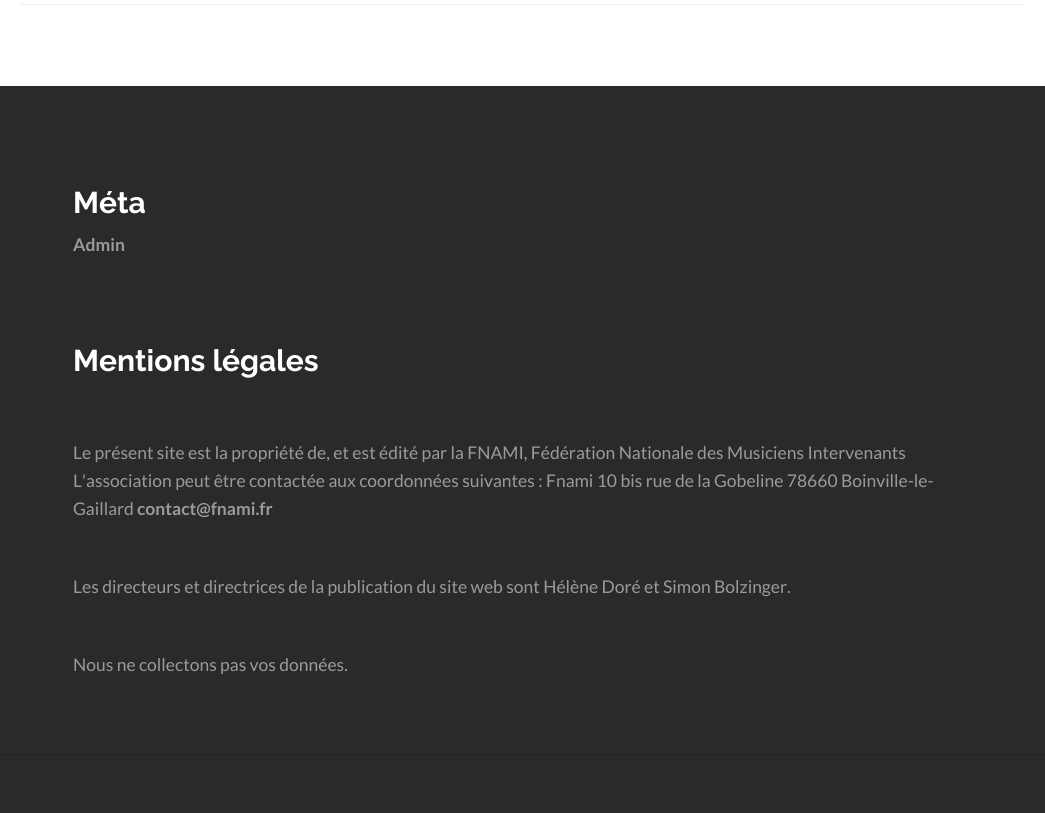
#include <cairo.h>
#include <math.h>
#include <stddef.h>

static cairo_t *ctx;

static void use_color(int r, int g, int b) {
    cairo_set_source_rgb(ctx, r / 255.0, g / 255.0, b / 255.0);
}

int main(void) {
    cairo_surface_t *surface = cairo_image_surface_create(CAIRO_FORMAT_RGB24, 1045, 813);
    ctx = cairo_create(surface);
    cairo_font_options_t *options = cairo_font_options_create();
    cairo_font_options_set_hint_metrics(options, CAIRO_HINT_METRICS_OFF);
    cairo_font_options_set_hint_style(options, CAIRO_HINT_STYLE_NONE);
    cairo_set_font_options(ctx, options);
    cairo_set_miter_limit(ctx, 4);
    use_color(255, 255, 255);
    cairo_paint(ctx);
    use_color(240, 240, 240);
    cairo_rectangle(ctx, 19, 4, 1007, 1);
    cairo_fill(ctx);
    use_color(42, 42, 42);
    cairo_rectangle(ctx, 0, 87, 1045, 726);
    cairo_fill(ctx);
    use_color(38, 38, 38);
    cairo_rectangle(ctx, 0, 86, 1045, 1);
    cairo_fill(ctx);
    cairo_select_font_face(ctx, "Raleway", CAIRO_FONT_SLANT_NORMAL, CAIRO_FONT_WEIGHT_BOLD);
    cairo_set_font_size(ctx, 30);
    use_color(255, 255, 255);
    cairo_move_to(ctx, 73, 213);
    cairo_show_text(ctx, "Méta");
    cairo_select_font_face(ctx, "Lato", CAIRO_FONT_SLANT_NORMAL, CAIRO_FONT_WEIGHT_BOLD);
    cairo_set_font_size(ctx, 17.5);
    use_color(154, 154, 154);
    cairo_move_to(ctx, 73, 251);
    cairo_show_text(ctx, "Admin");
    cairo_select_font_face(ctx, "Raleway", CAIRO_FONT_SLANT_NORMAL, CAIRO_FONT_WEIGHT_BOLD);
    cairo_set_font_size(ctx, 30);
    use_color(255, 255, 255);
    cairo_move_to(ctx, 73, 371);
    cairo_show_text(ctx, "Mentions légales");
    cairo_select_font_face(ctx, "Lato", CAIRO_FONT_SLANT_NORMAL, CAIRO_FONT_WEIGHT_NORMAL);
    cairo_set_font_size(ctx, 17.5);
    use_color(154, 154, 154);
    cairo_move_to(ctx, 73, 459);
    cairo_show_text(ctx, "Le présent site est la propriété de, et est édité par la FNAMI, Fédération Nationale des Musiciens Intervenants");
    cairo_move_to(ctx, 73, 487);
    cairo_show_text(ctx, "L'association peut être contactée aux coordonnées suivantes : Fnami 10 bis rue de la Gobeline 78660 Boinville-le-");
    cairo_move_to(ctx, 73, 515);
    cairo_show_text(ctx, "Gaillard");
    cairo_select_font_face(ctx, "Lato", CAIRO_FONT_SLANT_NORMAL, CAIRO_FONT_WEIGHT_BOLD);
    cairo_move_to(ctx, 137, 515);
    cairo_show_text(ctx, "contact@fnami.fr");
    cairo_select_font_face(ctx, "Lato", CAIRO_FONT_SLANT_NORMAL, CAIRO_FONT_WEIGHT_NORMAL);
    cairo_move_to(ctx, 73, 593);
    cairo_show_text(ctx, "Les directeurs et directrices de la publication du site web sont Hélène Doré et Simon Bolzinger.");
    cairo_move_to(ctx, 73, 671);
    cairo_show_text(ctx, "Nous ne collectons pas vos données.");
    use_color(34, 34, 34);
    cairo_rectangle(ctx, 0, 754, 1045, 1);
    cairo_fill(ctx);
    cairo_surface_write_to_png(surface, "result.png");
    cairo_font_options_destroy(options);
    cairo_destroy(ctx);
    cairo_surface_destroy(surface);
    return 0;
}
